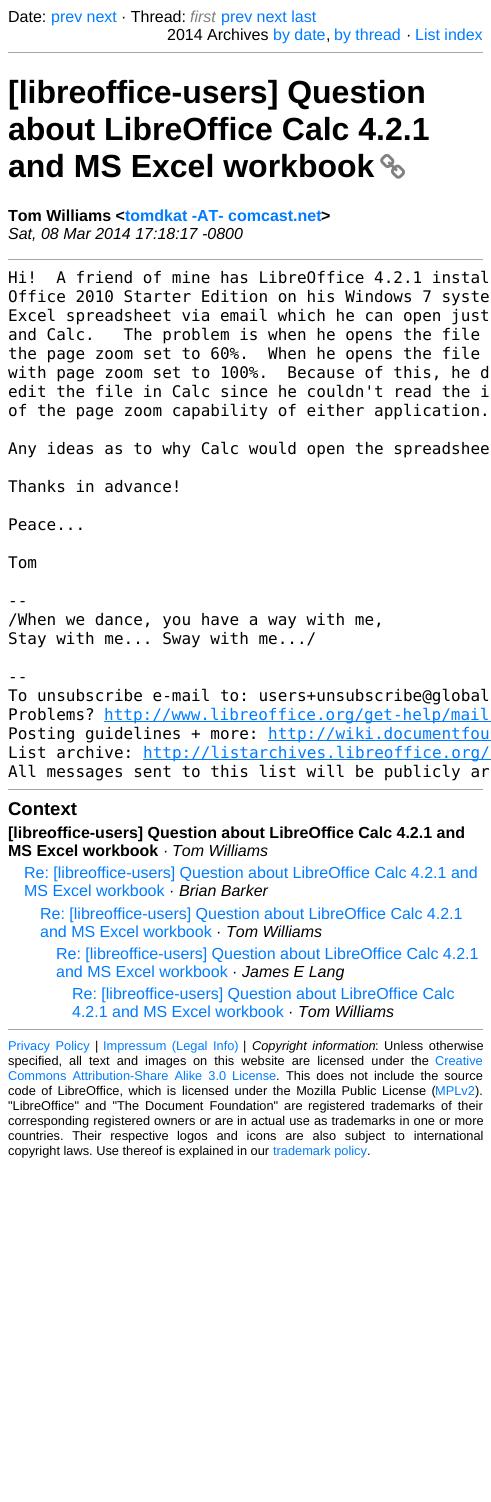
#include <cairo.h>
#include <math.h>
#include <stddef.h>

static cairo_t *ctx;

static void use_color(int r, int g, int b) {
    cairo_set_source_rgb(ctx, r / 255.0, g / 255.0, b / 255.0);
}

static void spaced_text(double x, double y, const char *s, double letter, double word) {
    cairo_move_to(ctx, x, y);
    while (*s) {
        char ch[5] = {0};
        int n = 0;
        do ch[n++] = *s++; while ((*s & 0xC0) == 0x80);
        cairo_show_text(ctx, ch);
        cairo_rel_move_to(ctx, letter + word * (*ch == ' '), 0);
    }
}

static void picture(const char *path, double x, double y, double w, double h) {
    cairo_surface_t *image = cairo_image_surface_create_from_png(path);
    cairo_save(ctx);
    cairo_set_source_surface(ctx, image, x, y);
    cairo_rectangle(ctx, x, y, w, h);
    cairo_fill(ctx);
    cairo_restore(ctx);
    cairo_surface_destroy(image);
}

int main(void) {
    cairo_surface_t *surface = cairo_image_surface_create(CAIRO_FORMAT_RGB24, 491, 1502);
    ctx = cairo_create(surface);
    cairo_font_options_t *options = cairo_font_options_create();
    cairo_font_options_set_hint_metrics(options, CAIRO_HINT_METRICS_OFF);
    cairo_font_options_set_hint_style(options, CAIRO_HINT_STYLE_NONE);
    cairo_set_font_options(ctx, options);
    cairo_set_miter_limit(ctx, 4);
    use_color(255, 255, 255);
    cairo_paint(ctx);
    cairo_select_font_face(ctx, "Liberation Sans", CAIRO_FONT_SLANT_NORMAL, CAIRO_FONT_WEIGHT_NORMAL);
    cairo_set_font_size(ctx, 16);
    use_color(0, 0, 0);
    cairo_move_to(ctx, 8, 22);
    cairo_show_text(ctx, "Date:");
    use_color(0, 123, 255);
    cairo_move_to(ctx, 51, 22);
    cairo_show_text(ctx, "prev next");
    use_color(0, 0, 0);
    cairo_move_to(ctx, 121, 22);
    cairo_show_text(ctx, "· Thread:");
    cairo_select_font_face(ctx, "Liberation Sans", CAIRO_FONT_SLANT_ITALIC, CAIRO_FONT_WEIGHT_NORMAL);
    use_color(128, 128, 128);
    cairo_move_to(ctx, 190, 22);
    cairo_show_text(ctx, "first");
    cairo_select_font_face(ctx, "Liberation Sans", CAIRO_FONT_SLANT_NORMAL, CAIRO_FONT_WEIGHT_NORMAL);
    use_color(0, 123, 255);
    cairo_move_to(ctx, 221, 22);
    cairo_show_text(ctx, "prev next last");
    use_color(0, 0, 0);
    cairo_move_to(ctx, 167, 40);
    cairo_show_text(ctx, "2014 Archives");
    use_color(0, 123, 255);
    cairo_move_to(ctx, 273, 40);
    cairo_show_text(ctx, "by date");
    cairo_move_to(ctx, 334, 40);
    cairo_show_text(ctx, "by thread");
    use_color(0, 0, 0);
    cairo_move_to(ctx, 406, 40);
    cairo_show_text(ctx, "·");
    use_color(0, 123, 255);
    cairo_move_to(ctx, 415, 40);
    cairo_show_text(ctx, "List index");
    use_color(0, 0, 0);
    cairo_move_to(ctx, 326, 40);
    cairo_show_text(ctx, ",");
    use_color(166, 166, 166);
    cairo_rectangle(ctx, 8, 52, 475, 1);
    cairo_fill(ctx);
    cairo_select_font_face(ctx, "Liberation Sans", CAIRO_FONT_SLANT_NORMAL, CAIRO_FONT_WEIGHT_BOLD);
    cairo_set_font_size(ctx, 32);
    use_color(0, 0, 0);
    cairo_move_to(ctx, 8, 103);
    cairo_show_text(ctx, "[libreoffice-users] Question");
    cairo_move_to(ctx, 8, 140);
    cairo_show_text(ctx, "about LibreOffice Calc 4.2.1");
    cairo_move_to(ctx, 8, 177);
    cairo_show_text(ctx, "and MS Excel workbook");
    picture("img1.png", 380, 153, 25, 26);
    cairo_set_font_size(ctx, 16);
    cairo_move_to(ctx, 8, 221);
    cairo_show_text(ctx, "Tom Williams <");
    use_color(0, 123, 255);
    cairo_move_to(ctx, 125, 221);
    cairo_show_text(ctx, "tomdkat -AT- comcast.net");
    use_color(0, 0, 0);
    cairo_move_to(ctx, 321, 221);
    cairo_show_text(ctx, ">");
    cairo_select_font_face(ctx, "Liberation Sans", CAIRO_FONT_SLANT_ITALIC, CAIRO_FONT_WEIGHT_NORMAL);
    cairo_move_to(ctx, 8, 239);
    cairo_show_text(ctx, "Sat, 08 Mar 2014 17:18:17 -0800");
    use_color(166, 166, 166);
    cairo_rectangle(ctx, 8, 259, 475, 1);
    cairo_fill(ctx);
    cairo_select_font_face(ctx, "DejaVu Sans Mono", CAIRO_FONT_SLANT_NORMAL, CAIRO_FONT_WEIGHT_NORMAL);
    use_color(0, 0, 0);
    cairo_move_to(ctx, 8, 283);
    cairo_show_text(ctx, "Hi!  A friend of mine has LibreOffice 4.2.1 instal");
    cairo_move_to(ctx, 8, 302);
    cairo_show_text(ctx, "Office 2010 Starter Edition on his Windows 7 syste");
    cairo_move_to(ctx, 8, 321);
    cairo_show_text(ctx, "Excel spreadsheet via email which he can open just");
    cairo_move_to(ctx, 8, 340);
    cairo_show_text(ctx, "and Calc.   The problem is when he opens the file");
    cairo_move_to(ctx, 8, 359);
    cairo_show_text(ctx, "the page zoom set to 60%.  When he opens the file");
    cairo_move_to(ctx, 8, 378);
    cairo_show_text(ctx, "with page zoom set to 100%.  Because of this, he d");
    cairo_move_to(ctx, 8, 397);
    cairo_show_text(ctx, "edit the file in Calc since he couldn't read the i");
    cairo_move_to(ctx, 8, 416);
    cairo_show_text(ctx, "of the page zoom capability of either application.");
    cairo_move_to(ctx, 8, 454);
    cairo_show_text(ctx, "Any ideas as to why Calc would open the spreadshee");
    cairo_move_to(ctx, 8, 492);
    cairo_show_text(ctx, "Thanks in advance!");
    cairo_move_to(ctx, 8, 530);
    cairo_show_text(ctx, "Peace...");
    cairo_move_to(ctx, 8, 568);
    cairo_show_text(ctx, "Tom");
    cairo_move_to(ctx, 8, 606);
    cairo_show_text(ctx, "--");
    cairo_move_to(ctx, 8, 625);
    cairo_show_text(ctx, "/When we dance, you have a way with me,");
    cairo_move_to(ctx, 8, 644);
    cairo_show_text(ctx, "Stay with me... Sway with me.../");
    cairo_move_to(ctx, 8, 682);
    cairo_show_text(ctx, "--");
    cairo_move_to(ctx, 8, 701);
    cairo_show_text(ctx, "To unsubscribe e-mail to: users+unsubscribe@global");
    cairo_move_to(ctx, 8, 720);
    cairo_show_text(ctx, "Problems?");
    use_color(0, 123, 255);
    cairo_rectangle(ctx, 104, 721, 387, 1);
    cairo_fill(ctx);
    cairo_move_to(ctx, 104, 720);
    cairo_show_text(ctx, "http://www.libreoffice.org/get-help/mail");
    use_color(0, 0, 0);
    cairo_move_to(ctx, 8, 739);
    cairo_show_text(ctx, "Posting guidelines + more:");
    use_color(0, 123, 255);
    cairo_rectangle(ctx, 268, 740, 223, 1);
    cairo_fill(ctx);
    cairo_move_to(ctx, 268, 739);
    cairo_show_text(ctx, "http://wiki.documentfou");
    use_color(0, 0, 0);
    cairo_move_to(ctx, 8, 758);
    cairo_show_text(ctx, "List archive:");
    use_color(0, 123, 255);
    cairo_rectangle(ctx, 143, 759, 348, 1);
    cairo_fill(ctx);
    cairo_move_to(ctx, 143, 758);
    cairo_show_text(ctx, "http://listarchives.libreoffice.org/");
    use_color(0, 0, 0);
    cairo_move_to(ctx, 8, 777);
    cairo_show_text(ctx, "All messages sent to this list will be publicly ar");
    use_color(166, 166, 166);
    cairo_rectangle(ctx, 8, 789, 475, 1);
    cairo_fill(ctx);
    cairo_select_font_face(ctx, "Liberation Sans", CAIRO_FONT_SLANT_NORMAL, CAIRO_FONT_WEIGHT_BOLD);
    cairo_set_font_size(ctx, 18.5);
    use_color(0, 0, 0);
    cairo_move_to(ctx, 8, 815);
    cairo_show_text(ctx, "Context");
    cairo_set_font_size(ctx, 16);
    cairo_move_to(ctx, 8, 838);
    cairo_show_text(ctx, "[libreoffice-users] Question about LibreOffice Calc 4.2.1 and");
    cairo_move_to(ctx, 8, 856);
    cairo_show_text(ctx, "MS Excel workbook");
    cairo_select_font_face(ctx, "Liberation Sans", CAIRO_FONT_SLANT_NORMAL, CAIRO_FONT_WEIGHT_NORMAL);
    cairo_move_to(ctx, 163, 856);
    cairo_show_text(ctx, "·");
    cairo_select_font_face(ctx, "Liberation Sans", CAIRO_FONT_SLANT_ITALIC, CAIRO_FONT_WEIGHT_NORMAL);
    cairo_move_to(ctx, 172, 856);
    cairo_show_text(ctx, "Tom Williams");
    cairo_select_font_face(ctx, "Liberation Sans", CAIRO_FONT_SLANT_NORMAL, CAIRO_FONT_WEIGHT_NORMAL);
    use_color(0, 123, 255);
    cairo_move_to(ctx, 24, 878);
    cairo_show_text(ctx, "Re: [libreoffice-users] Question about LibreOffice Calc 4.2.1 and");
    cairo_move_to(ctx, 24, 896);
    cairo_show_text(ctx, "MS Excel workbook");
    use_color(0, 0, 0);
    cairo_move_to(ctx, 169, 896);
    cairo_show_text(ctx, "·");
    cairo_select_font_face(ctx, "Liberation Sans", CAIRO_FONT_SLANT_ITALIC, CAIRO_FONT_WEIGHT_NORMAL);
    cairo_move_to(ctx, 179, 896);
    cairo_show_text(ctx, "Brian Barker");
    cairo_select_font_face(ctx, "Liberation Sans", CAIRO_FONT_SLANT_NORMAL, CAIRO_FONT_WEIGHT_NORMAL);
    use_color(0, 123, 255);
    cairo_move_to(ctx, 40, 919);
    cairo_show_text(ctx, "Re: [libreoffice-users] Question about LibreOffice Calc 4.2.1");
    cairo_move_to(ctx, 40, 937);
    cairo_show_text(ctx, "and MS Excel workbook");
    use_color(0, 0, 0);
    cairo_move_to(ctx, 216, 937);
    cairo_show_text(ctx, "·");
    cairo_select_font_face(ctx, "Liberation Sans", CAIRO_FONT_SLANT_ITALIC, CAIRO_FONT_WEIGHT_NORMAL);
    cairo_move_to(ctx, 226, 937);
    cairo_show_text(ctx, "Tom Williams");
    cairo_select_font_face(ctx, "Liberation Sans", CAIRO_FONT_SLANT_NORMAL, CAIRO_FONT_WEIGHT_NORMAL);
    use_color(0, 123, 255);
    cairo_move_to(ctx, 56, 959);
    cairo_show_text(ctx, "Re: [libreoffice-users] Question about LibreOffice Calc 4.2.1");
    cairo_move_to(ctx, 56, 977);
    cairo_show_text(ctx, "and MS Excel workbook");
    use_color(0, 0, 0);
    cairo_move_to(ctx, 232, 977);
    cairo_show_text(ctx, "·");
    cairo_select_font_face(ctx, "Liberation Sans", CAIRO_FONT_SLANT_ITALIC, CAIRO_FONT_WEIGHT_NORMAL);
    cairo_move_to(ctx, 242, 977);
    cairo_show_text(ctx, "James E Lang");
    cairo_select_font_face(ctx, "Liberation Sans", CAIRO_FONT_SLANT_NORMAL, CAIRO_FONT_WEIGHT_NORMAL);
    use_color(0, 123, 255);
    cairo_move_to(ctx, 72, 999);
    cairo_show_text(ctx, "Re: [libreoffice-users] Question about LibreOffice Calc");
    cairo_move_to(ctx, 72, 1017);
    cairo_show_text(ctx, "4.2.1 and MS Excel workbook");
    use_color(0, 0, 0);
    cairo_move_to(ctx, 288, 1017);
    cairo_show_text(ctx, "·");
    cairo_select_font_face(ctx, "Liberation Sans", CAIRO_FONT_SLANT_ITALIC, CAIRO_FONT_WEIGHT_NORMAL);
    cairo_move_to(ctx, 298, 1017);
    cairo_show_text(ctx, "Tom Williams");
    use_color(166, 166, 166);
    cairo_rectangle(ctx, 8, 1029, 475, 1);
    cairo_fill(ctx);
    cairo_select_font_face(ctx, "Liberation Sans", CAIRO_FONT_SLANT_NORMAL, CAIRO_FONT_WEIGHT_NORMAL);
    cairo_set_font_size(ctx, 12.8);
    use_color(0, 123, 255);
    spaced_text(8, 1050, "Privacy Policy", 0, 2);
    use_color(0, 0, 0);
    cairo_move_to(ctx, 95, 1050);
    cairo_show_text(ctx, "|");
    use_color(0, 123, 255);
    spaced_text(103, 1050, "Impressum (Legal Info)", 0, 2);
    use_color(0, 0, 0);
    cairo_move_to(ctx, 243, 1050);
    cairo_show_text(ctx, "|");
    cairo_select_font_face(ctx, "Liberation Sans", CAIRO_FONT_SLANT_ITALIC, CAIRO_FONT_WEIGHT_NORMAL);
    spaced_text(252, 1050, "Copyright information", 0, 2);
    cairo_select_font_face(ctx, "Liberation Sans", CAIRO_FONT_SLANT_NORMAL, CAIRO_FONT_WEIGHT_NORMAL);
    spaced_text(375, 1050, ": Unless otherwise", 0, 2);
    spaced_text(8, 1065, "specified, all text and images", 0, 3.5);
    spaced_text(193, 1065, "on this website are licensed under the", 0, 3.5);
    use_color(0, 123, 255);
    cairo_move_to(ctx, 435, 1065);
    cairo_show_text(ctx, "Creative");
    spaced_text(8, 1080, "Commons Attribution-Share Alike 3.0 License", 0, 2.5);
    use_color(0, 0, 0);
    cairo_move_to(ctx, 276, 1080);
    cairo_show_text(ctx, ".");
    spaced_text(286, 1080, "This does not include the source", 0, 2.5);
    spaced_text(8, 1095, "code of LibreOffice, which is", 0, 2);
    spaced_text(182, 1095, "licensed under the Mozilla Public License (", 0, 2);
    use_color(0, 123, 255);
    cairo_move_to(ctx, 435, 1095);
    cairo_show_text(ctx, "MPLv2");
    use_color(0, 0, 0);
    cairo_move_to(ctx, 475, 1095);
    cairo_show_text(ctx, ").");
    spaced_text(8, 1110, "\"LibreOffice\" and \"The Document Foundation\" are", 0, 2.5);
    spaced_text(308, 1110, "registered trademarks of their", 0, 2.5);
    spaced_text(8, 1125, "corresponding registered owners or are", 0, 0.5);
    spaced_text(237, 1125, "in actual use as trademarks in one or more", 0, 0.5);
    spaced_text(8, 1140, "countries. Their respective", 0, 5.25);
    spaced_text(177, 1140, "logos and icons are also subject to international", 0, 5.25);
    cairo_move_to(ctx, 8, 1155);
    cairo_show_text(ctx, "copyright laws. Use thereof is explained in our");
    use_color(0, 123, 255);
    cairo_move_to(ctx, 273, 1155);
    cairo_show_text(ctx, "trademark policy");
    use_color(0, 0, 0);
    cairo_move_to(ctx, 367, 1155);
    cairo_show_text(ctx, ".");
    cairo_surface_write_to_png(surface, "result.png");
    cairo_font_options_destroy(options);
    cairo_destroy(ctx);
    cairo_surface_destroy(surface);
    return 0;
}
